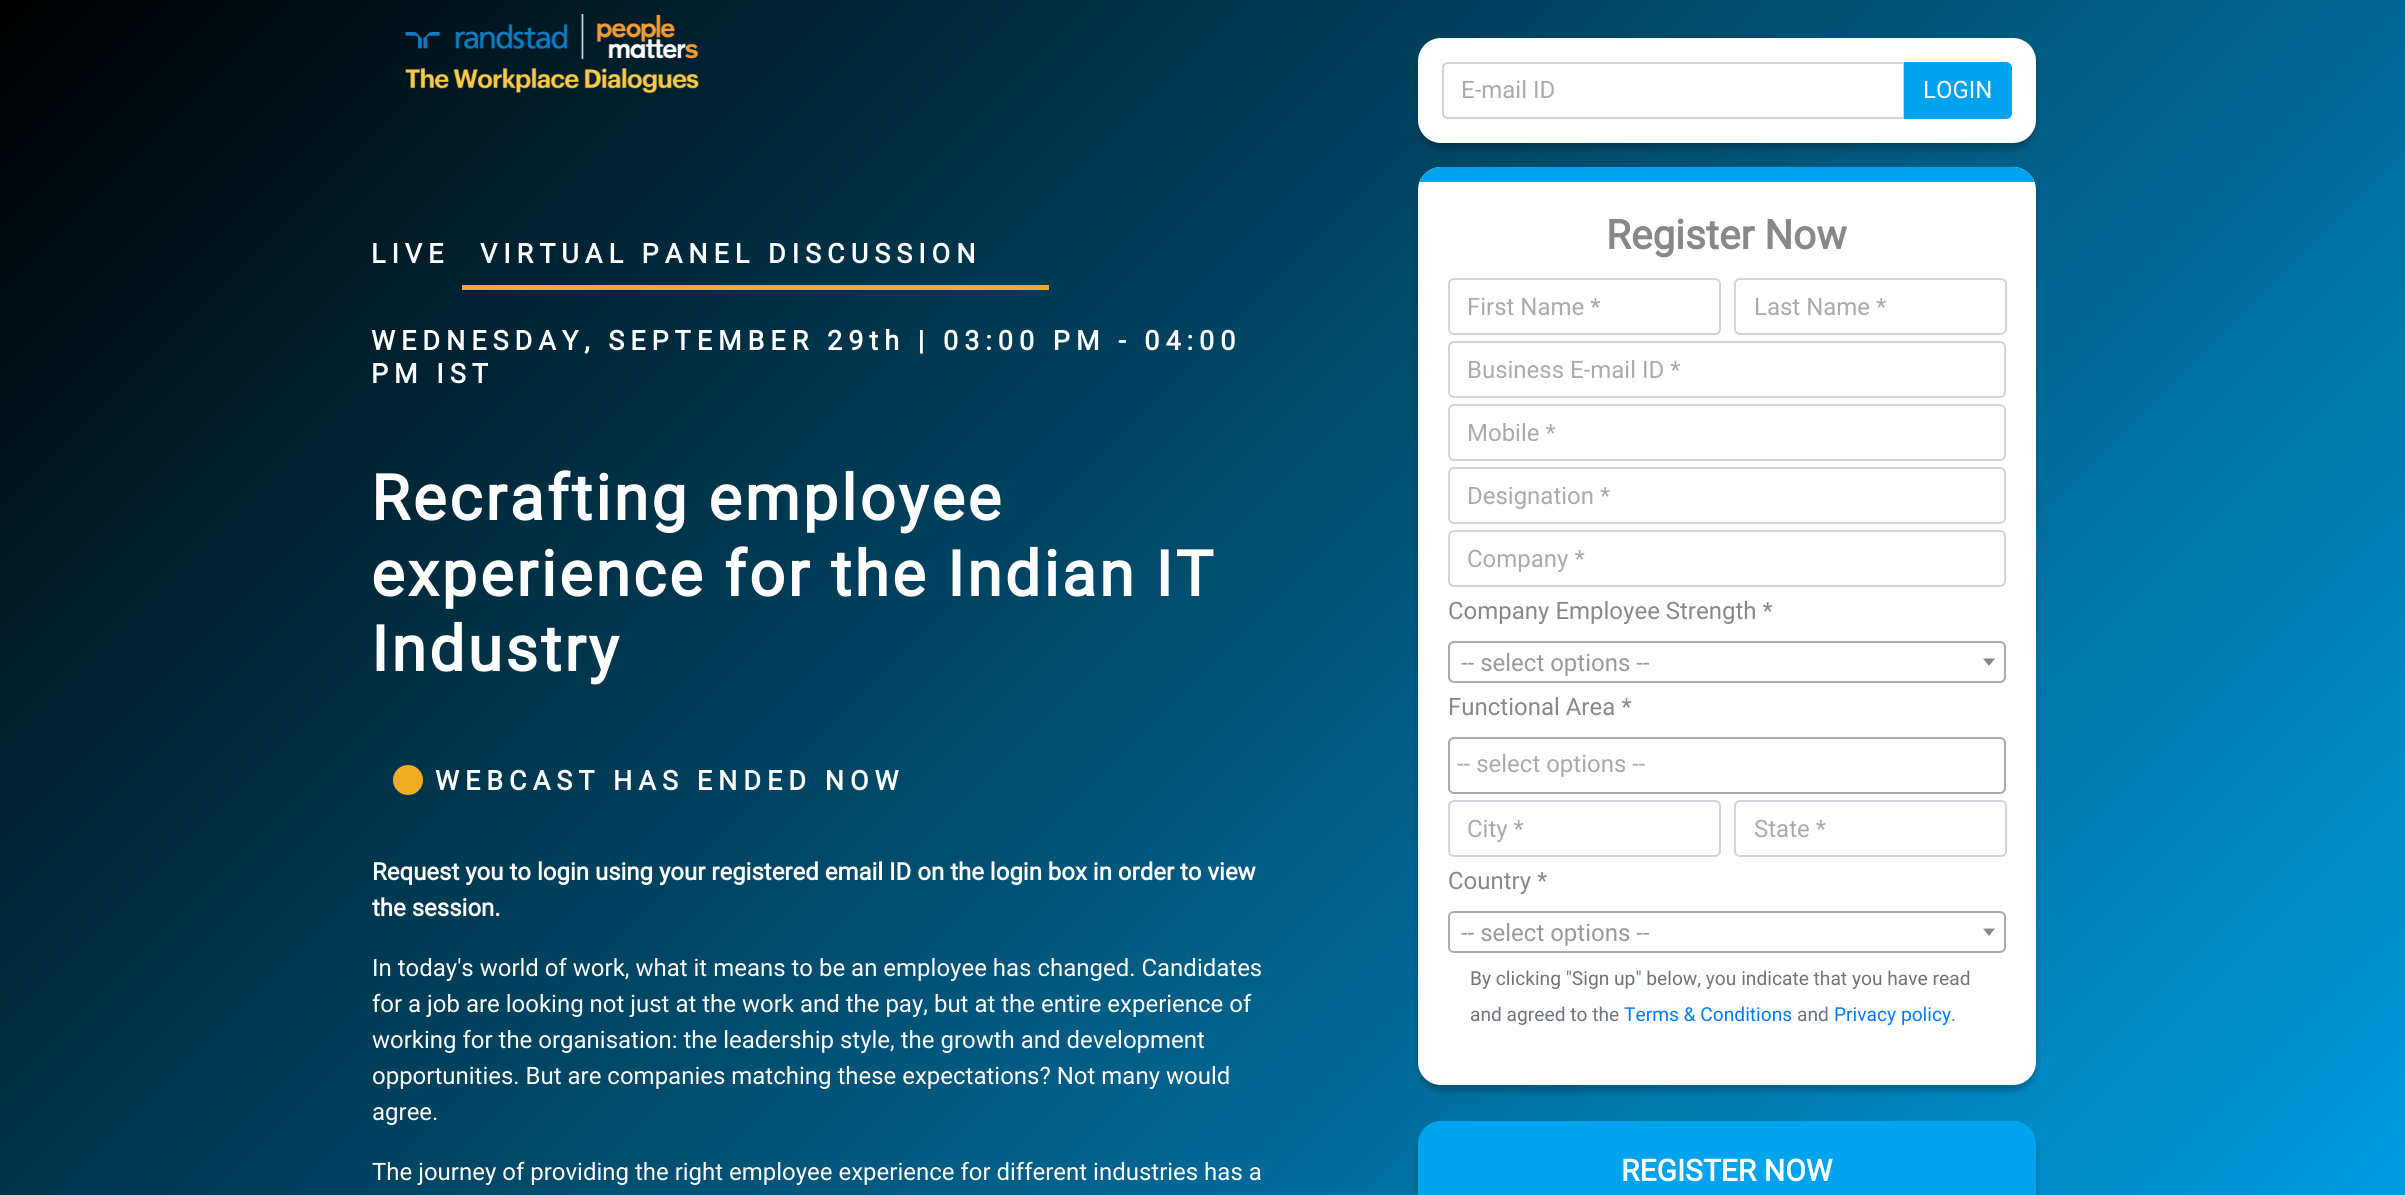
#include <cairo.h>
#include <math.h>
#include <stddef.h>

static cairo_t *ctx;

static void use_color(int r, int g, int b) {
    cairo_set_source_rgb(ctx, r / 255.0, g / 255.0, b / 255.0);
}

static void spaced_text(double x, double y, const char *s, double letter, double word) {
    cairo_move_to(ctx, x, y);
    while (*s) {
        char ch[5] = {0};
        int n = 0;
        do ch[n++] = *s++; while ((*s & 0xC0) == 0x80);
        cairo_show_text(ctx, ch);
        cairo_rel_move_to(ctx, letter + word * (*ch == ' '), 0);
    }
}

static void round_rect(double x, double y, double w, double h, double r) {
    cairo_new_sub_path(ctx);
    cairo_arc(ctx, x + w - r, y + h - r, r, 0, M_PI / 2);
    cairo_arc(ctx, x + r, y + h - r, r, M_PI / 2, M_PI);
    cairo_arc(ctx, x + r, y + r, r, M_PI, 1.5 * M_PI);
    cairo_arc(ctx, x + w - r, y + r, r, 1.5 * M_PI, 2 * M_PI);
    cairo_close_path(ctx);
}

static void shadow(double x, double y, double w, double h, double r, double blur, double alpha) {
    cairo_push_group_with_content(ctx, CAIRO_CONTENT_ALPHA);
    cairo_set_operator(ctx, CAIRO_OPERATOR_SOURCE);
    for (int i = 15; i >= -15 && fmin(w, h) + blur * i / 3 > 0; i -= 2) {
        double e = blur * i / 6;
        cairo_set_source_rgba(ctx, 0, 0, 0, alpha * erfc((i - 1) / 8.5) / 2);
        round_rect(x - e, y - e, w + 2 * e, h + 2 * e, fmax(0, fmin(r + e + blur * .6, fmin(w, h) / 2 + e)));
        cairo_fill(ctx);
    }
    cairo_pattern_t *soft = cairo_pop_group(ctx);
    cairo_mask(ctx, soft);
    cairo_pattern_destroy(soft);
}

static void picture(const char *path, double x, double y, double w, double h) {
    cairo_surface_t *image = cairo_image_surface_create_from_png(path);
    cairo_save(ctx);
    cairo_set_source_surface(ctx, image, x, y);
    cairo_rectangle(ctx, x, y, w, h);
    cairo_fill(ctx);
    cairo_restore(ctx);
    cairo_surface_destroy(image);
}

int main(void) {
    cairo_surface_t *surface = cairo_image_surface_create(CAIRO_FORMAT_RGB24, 2405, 1195);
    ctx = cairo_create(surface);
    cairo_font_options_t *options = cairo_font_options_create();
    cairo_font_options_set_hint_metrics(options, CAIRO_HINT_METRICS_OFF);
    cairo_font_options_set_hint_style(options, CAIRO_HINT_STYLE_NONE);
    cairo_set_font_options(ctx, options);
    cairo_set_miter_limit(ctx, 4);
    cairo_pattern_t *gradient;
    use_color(255, 255, 255);
    cairo_paint(ctx);
    gradient = cairo_pattern_create_linear(2103, 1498, 303, -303);
    cairo_pattern_add_color_stop_rgba(gradient, 0, 0.004, 0.612, 0.878, 1);
    cairo_pattern_add_color_stop_rgba(gradient, 1, 0, 0, 0, 1);
    cairo_set_source(ctx, gradient);
    cairo_pattern_destroy(gradient);
    cairo_rectangle(ctx, 0, 107, 2405, 1088);
    cairo_fill(ctx);
    cairo_rectangle(ctx, 0, 0, 2405, 107);
    cairo_fill(ctx);
    picture("img1.png", 405, 14, 294, 79);
    cairo_select_font_face(ctx, "Roboto", CAIRO_FONT_SLANT_NORMAL, CAIRO_FONT_WEIGHT_BOLD);
    cairo_set_font_size(ctx, 27);
    use_color(255, 255, 255);
    spaced_text(371, 263, "LIVE", 6, 0);
    use_color(240, 172, 36);
    cairo_rectangle(ctx, 462, 285, 587, 5);
    cairo_fill(ctx);
    use_color(255, 255, 255);
    spaced_text(480, 263, "VIRTUAL PANEL DISCUSSION", 6, 0);
    spaced_text(371, 350, "WEDNESDAY, SEPTEMBER 29th | 03:00 PM - 04:00", 6, 0);
    spaced_text(371, 383, "PM IST", 6, 0);
    cairo_set_font_size(ctx, 63);
    spaced_text(371, 520, "Recrafting employee", 3, 0);
    spaced_text(371, 596, "experience for the Indian IT", 3, 0);
    spaced_text(371, 671, "Industry", 3, 0);
    use_color(240, 172, 36);
    cairo_new_path(ctx);
    cairo_arc(ctx, 408, 780, 15, 0, 2 * M_PI);
    cairo_fill(ctx);
    cairo_set_font_size(ctx, 27);
    use_color(255, 255, 255);
    spaced_text(435, 790, "WEBCAST HAS ENDED NOW", 6, 0);
    cairo_set_font_size(ctx, 24);
    cairo_move_to(ctx, 372, 880);
    cairo_show_text(ctx, "Request you to login using your registered email ID on the login box in order to view");
    cairo_move_to(ctx, 372, 916);
    cairo_show_text(ctx, "the session.");
    cairo_select_font_face(ctx, "Roboto", CAIRO_FONT_SLANT_NORMAL, CAIRO_FONT_WEIGHT_NORMAL);
    cairo_move_to(ctx, 372, 976);
    cairo_show_text(ctx, "In today's world of work, what it means to be an employee has changed. Candidates");
    cairo_move_to(ctx, 372, 1012);
    cairo_show_text(ctx, "for a job are looking not just at the work and the pay, but at the entire experience of");
    cairo_move_to(ctx, 372, 1048);
    cairo_show_text(ctx, "working for the organisation: the leadership style, the growth and development");
    cairo_move_to(ctx, 372, 1084);
    cairo_show_text(ctx, "opportunities. But are companies matching these expectations? Not many would");
    cairo_move_to(ctx, 372, 1120);
    cairo_show_text(ctx, "agree.");
    cairo_move_to(ctx, 372, 1180);
    cairo_show_text(ctx, "The journey of providing the right employee experience for different industries has a");
    use_color(0, 0, 0);
    shadow(1418, 44, 618, 105, 23, 3, 0.25);
    use_color(255, 255, 255);
    round_rect(1418, 38, 618, 105, 23);
    cairo_fill(ctx);
    cairo_new_path(ctx);
    cairo_move_to(ctx, 1448, 63);
    cairo_line_to(ctx, 1904, 63);
    cairo_line_to(ctx, 1904, 118);
    cairo_line_to(ctx, 1448, 118);
    cairo_curve_to(ctx, 1445, 118, 1443, 116, 1443, 113);
    cairo_line_to(ctx, 1443, 68);
    cairo_curve_to(ctx, 1443, 65, 1445, 63, 1448, 63);
    cairo_close_path(ctx);
    use_color(206, 212, 218);
    cairo_stroke(ctx);
    use_color(170, 170, 170);
    cairo_move_to(ctx, 1461, 98);
    cairo_show_text(ctx, "E-mail ID");
    use_color(0, 163, 238);
    cairo_new_path(ctx);
    cairo_move_to(ctx, 1904, 62);
    cairo_line_to(ctx, 2006, 62);
    cairo_curve_to(ctx, 2009.5, 62, 2012, 64.5, 2012, 68);
    cairo_line_to(ctx, 2012, 113);
    cairo_curve_to(ctx, 2012, 116.5, 2009.5, 119, 2006, 119);
    cairo_line_to(ctx, 1904, 119);
    cairo_close_path(ctx);
    cairo_fill(ctx);
    use_color(255, 255, 255);
    cairo_move_to(ctx, 1923, 98);
    cairo_show_text(ctx, "LOGIN");
    use_color(0, 0, 0);
    shadow(1418, 173, 618, 918, 23, 3, 0.25);
    use_color(255, 255, 255);
    round_rect(1418, 167, 618, 918, 23);
    cairo_fill(ctx);
    cairo_save(ctx);
    round_rect(1418, 167, 618, 918, 23);
    cairo_clip(ctx);
    use_color(0, 163, 238);
    cairo_rectangle(ctx, 1419, 167, 616, 15);
    cairo_fill(ctx);
    cairo_restore(ctx);
    cairo_select_font_face(ctx, "Roboto", CAIRO_FONT_SLANT_NORMAL, CAIRO_FONT_WEIGHT_BOLD);
    cairo_set_font_size(ctx, 40.5);
    use_color(136, 136, 136);
    cairo_move_to(ctx, 1606, 249);
    cairo_show_text(ctx, "Register Now");
    round_rect(1449, 279, 271, 55, 5);
    use_color(206, 212, 218);
    cairo_stroke(ctx);
    cairo_select_font_face(ctx, "Roboto", CAIRO_FONT_SLANT_NORMAL, CAIRO_FONT_WEIGHT_NORMAL);
    cairo_set_font_size(ctx, 24);
    use_color(170, 170, 170);
    cairo_move_to(ctx, 1467, 315);
    cairo_show_text(ctx, "First Name *");
    round_rect(1735, 279, 271, 55, 5);
    use_color(206, 212, 218);
    cairo_stroke(ctx);
    use_color(170, 170, 170);
    cairo_move_to(ctx, 1754, 315);
    cairo_show_text(ctx, "Last Name *");
    round_rect(1449, 342, 556, 55, 5);
    use_color(206, 212, 218);
    cairo_stroke(ctx);
    use_color(170, 170, 170);
    cairo_move_to(ctx, 1467, 378);
    cairo_show_text(ctx, "Business E-mail ID *");
    round_rect(1449, 405, 556, 55, 5);
    use_color(206, 212, 218);
    cairo_stroke(ctx);
    use_color(170, 170, 170);
    cairo_move_to(ctx, 1467, 441);
    cairo_show_text(ctx, "Mobile *");
    round_rect(1449, 468, 556, 55, 5);
    use_color(206, 212, 218);
    cairo_stroke(ctx);
    use_color(170, 170, 170);
    cairo_move_to(ctx, 1467, 504);
    cairo_show_text(ctx, "Designation *");
    round_rect(1449, 531, 556, 55, 5);
    use_color(206, 212, 218);
    cairo_stroke(ctx);
    use_color(170, 170, 170);
    cairo_move_to(ctx, 1467, 567);
    cairo_show_text(ctx, "Company *");
    use_color(136, 136, 136);
    cairo_move_to(ctx, 1448, 619);
    cairo_show_text(ctx, "Company Employee Strength *");
    round_rect(1449, 642, 556, 40, 5);
    use_color(170, 170, 170);
    cairo_stroke(ctx);
    use_color(153, 153, 153);
    cairo_move_to(ctx, 1461, 671);
    cairo_show_text(ctx, "-- select options --");
    use_color(136, 136, 136);
    cairo_new_path(ctx);
    cairo_move_to(ctx, 1983, 658.5);
    cairo_line_to(ctx, 1995, 658.5);
    cairo_line_to(ctx, 1989, 666);
    cairo_close_path(ctx);
    cairo_fill(ctx);
    cairo_move_to(ctx, 1448, 715);
    cairo_show_text(ctx, "Functional Area *");
    round_rect(1449, 738, 556, 55, 5);
    use_color(170, 170, 170);
    cairo_stroke(ctx);
    cairo_move_to(ctx, 1457, 772);
    cairo_show_text(ctx, "-- select options --");
    round_rect(1449, 801, 271, 55, 5);
    use_color(206, 212, 218);
    cairo_stroke(ctx);
    use_color(170, 170, 170);
    cairo_move_to(ctx, 1467, 837);
    cairo_show_text(ctx, "City *");
    round_rect(1735, 801, 271, 55, 5);
    use_color(206, 212, 218);
    cairo_stroke(ctx);
    use_color(170, 170, 170);
    cairo_move_to(ctx, 1754, 837);
    cairo_show_text(ctx, "State *");
    use_color(136, 136, 136);
    cairo_move_to(ctx, 1448, 889);
    cairo_show_text(ctx, "Country *");
    round_rect(1449, 912, 556, 40, 5);
    use_color(170, 170, 170);
    cairo_stroke(ctx);
    use_color(153, 153, 153);
    cairo_move_to(ctx, 1461, 941);
    cairo_show_text(ctx, "-- select options --");
    use_color(136, 136, 136);
    cairo_new_path(ctx);
    cairo_move_to(ctx, 1983, 928.5);
    cairo_line_to(ctx, 1995, 928.5);
    cairo_line_to(ctx, 1989, 936);
    cairo_close_path(ctx);
    cairo_fill(ctx);
    cairo_set_font_size(ctx, 19.2);
    use_color(108, 117, 125);
    cairo_move_to(ctx, 1470, 985);
    cairo_show_text(ctx, "By clicking \"Sign up\" below, you indicate that you have read");
    cairo_move_to(ctx, 1470, 1021);
    cairo_show_text(ctx, "and agreed to the");
    use_color(0, 123, 255);
    cairo_move_to(ctx, 1624, 1021);
    cairo_show_text(ctx, "Terms & Conditions");
    use_color(108, 117, 125);
    cairo_move_to(ctx, 1797, 1021);
    cairo_show_text(ctx, "and");
    use_color(0, 123, 255);
    cairo_move_to(ctx, 1834, 1021);
    cairo_show_text(ctx, "Privacy policy");
    use_color(108, 117, 125);
    cairo_move_to(ctx, 1951, 1021);
    cairo_show_text(ctx, ".");
    use_color(0, 0, 0);
    shadow(1418, 1127, 618, 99, 23, 3, 0.25);
    use_color(0, 163, 238);
    round_rect(1418, 1121, 618, 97, 23);
    cairo_fill(ctx);
    cairo_select_font_face(ctx, "Roboto", CAIRO_FONT_SLANT_NORMAL, CAIRO_FONT_WEIGHT_BOLD);
    cairo_set_font_size(ctx, 30);
    use_color(255, 255, 255);
    cairo_move_to(ctx, 1621, 1181);
    cairo_show_text(ctx, "REGISTER NOW");
    cairo_surface_write_to_png(surface, "result.png");
    cairo_font_options_destroy(options);
    cairo_destroy(ctx);
    cairo_surface_destroy(surface);
    return 0;
}
